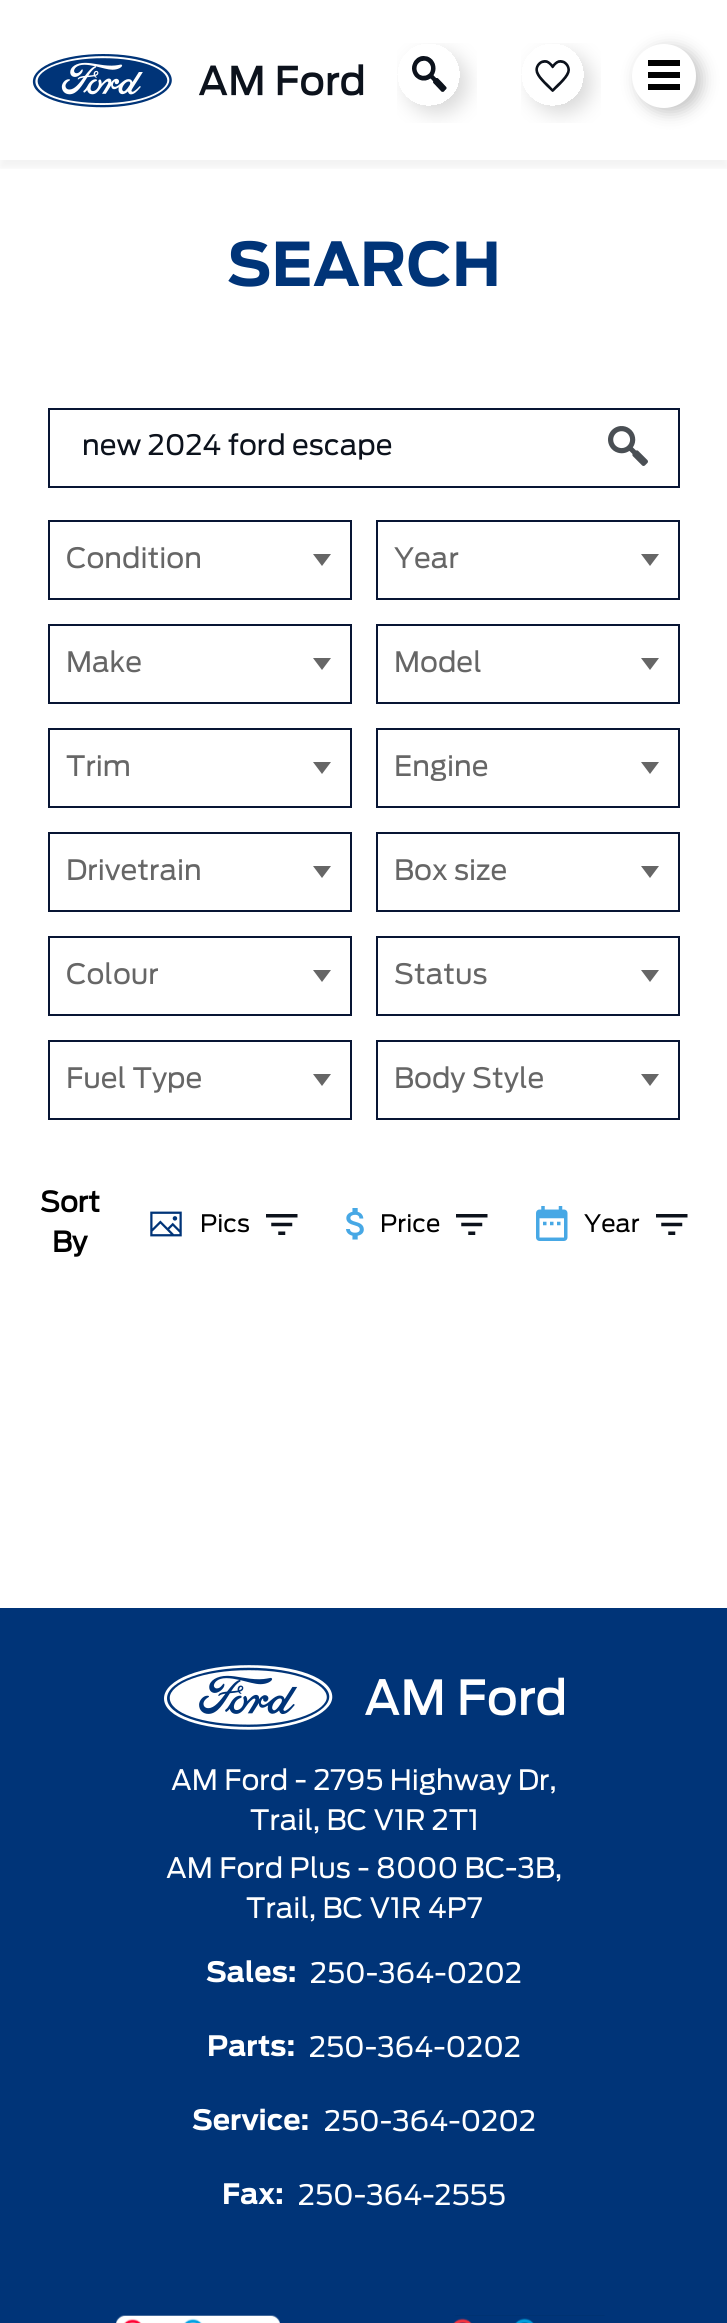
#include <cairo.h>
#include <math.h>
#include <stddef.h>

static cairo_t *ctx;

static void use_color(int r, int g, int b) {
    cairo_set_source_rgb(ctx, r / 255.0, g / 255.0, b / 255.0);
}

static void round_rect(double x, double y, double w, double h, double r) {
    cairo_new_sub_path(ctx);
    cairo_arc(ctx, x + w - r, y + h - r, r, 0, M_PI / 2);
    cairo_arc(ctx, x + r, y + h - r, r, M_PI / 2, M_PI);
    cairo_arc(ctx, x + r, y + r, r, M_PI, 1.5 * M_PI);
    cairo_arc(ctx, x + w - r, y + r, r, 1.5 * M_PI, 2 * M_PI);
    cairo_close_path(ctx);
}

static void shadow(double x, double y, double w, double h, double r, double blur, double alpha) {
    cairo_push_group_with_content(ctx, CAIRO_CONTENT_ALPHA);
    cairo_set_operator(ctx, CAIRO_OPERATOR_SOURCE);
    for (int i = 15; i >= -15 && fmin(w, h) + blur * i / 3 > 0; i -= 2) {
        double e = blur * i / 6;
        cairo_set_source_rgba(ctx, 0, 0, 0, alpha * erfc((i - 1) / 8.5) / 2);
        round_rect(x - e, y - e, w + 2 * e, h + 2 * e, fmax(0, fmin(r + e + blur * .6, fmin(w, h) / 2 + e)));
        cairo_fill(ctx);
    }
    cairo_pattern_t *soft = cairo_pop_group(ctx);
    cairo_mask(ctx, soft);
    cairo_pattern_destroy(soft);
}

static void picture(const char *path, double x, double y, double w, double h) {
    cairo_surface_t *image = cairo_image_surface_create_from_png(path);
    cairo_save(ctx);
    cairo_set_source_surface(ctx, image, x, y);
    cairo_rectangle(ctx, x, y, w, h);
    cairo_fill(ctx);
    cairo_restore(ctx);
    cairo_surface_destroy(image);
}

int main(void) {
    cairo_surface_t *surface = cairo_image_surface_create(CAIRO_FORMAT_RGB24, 727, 2323);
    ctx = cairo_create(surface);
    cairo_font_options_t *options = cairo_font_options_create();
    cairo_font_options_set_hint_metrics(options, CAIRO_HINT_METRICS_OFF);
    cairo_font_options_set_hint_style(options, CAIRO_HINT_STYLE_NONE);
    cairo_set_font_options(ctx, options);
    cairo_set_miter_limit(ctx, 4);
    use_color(255, 255, 255);
    cairo_paint(ctx);
    cairo_save(ctx);
    cairo_rectangle(ctx, 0, 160, 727, 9);
    cairo_clip(ctx);
    use_color(0, 0, 0);
    shadow(0, 8, 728, 160, 0, 4, 0.05);
    cairo_restore(ctx);
    picture("img1.png", 32, 54, 332, 54);
    picture("img2.png", 397, 43, 80, 80);
    picture("img3.png", 521, 43, 80, 80);
    use_color(195, 195, 195);
    shadow(638, 48, 64, 64, 32, 8, 1);
    use_color(255, 255, 255);
    cairo_arc(ctx, 664, 76, 32, 0, 2 * M_PI);
    cairo_fill(ctx);
    use_color(0, 0, 0);
    cairo_rectangle(ctx, 648, 60, 32, 6);
    cairo_fill(ctx);
    cairo_rectangle(ctx, 648, 72, 32, 6);
    cairo_fill(ctx);
    cairo_rectangle(ctx, 648, 84, 32, 6);
    cairo_fill(ctx);
    cairo_select_font_face(ctx, "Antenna", CAIRO_FONT_SLANT_NORMAL, CAIRO_FONT_WEIGHT_BOLD);
    cairo_set_font_size(ctx, 60);
    use_color(0, 52, 120);
    cairo_move_to(ctx, 227, 286);
    cairo_show_text(ctx, "SEARCH");
    cairo_rectangle(ctx, 49, 409, 630, 78);
    use_color(8, 21, 52);
    cairo_stroke(ctx);
    cairo_select_font_face(ctx, "Antenna", CAIRO_FONT_SLANT_NORMAL, CAIRO_FONT_WEIGHT_NORMAL);
    cairo_set_font_size(ctx, 28);
    use_color(12, 18, 28);
    cairo_move_to(ctx, 82, 455);
    cairo_show_text(ctx, "new 2024 ford escape");
    picture("img4.png", 608, 426, 40, 40);
    cairo_rectangle(ctx, 49, 521, 302, 78);
    use_color(8, 21, 52);
    cairo_stroke(ctx);
    use_color(102, 102, 102);
    cairo_move_to(ctx, 66, 568);
    cairo_show_text(ctx, "Condition");
    cairo_set_fill_rule(ctx, CAIRO_FILL_RULE_EVEN_ODD);
    cairo_new_path(ctx);
    cairo_move_to(ctx, 313, 554);
    cairo_line_to(ctx, 322, 566);
    cairo_line_to(ctx, 331, 554);
    cairo_close_path(ctx);
    cairo_fill(ctx);
    cairo_rectangle(ctx, 377, 521, 302, 78);
    use_color(8, 21, 52);
    cairo_stroke(ctx);
    use_color(102, 102, 102);
    cairo_move_to(ctx, 394, 568);
    cairo_show_text(ctx, "Year");
    cairo_new_path(ctx);
    cairo_move_to(ctx, 641, 554);
    cairo_line_to(ctx, 650, 566);
    cairo_line_to(ctx, 659, 554);
    cairo_close_path(ctx);
    cairo_fill(ctx);
    cairo_rectangle(ctx, 49, 625, 302, 78);
    use_color(8, 21, 52);
    cairo_stroke(ctx);
    use_color(102, 102, 102);
    cairo_move_to(ctx, 66, 672);
    cairo_show_text(ctx, "Make");
    cairo_new_path(ctx);
    cairo_move_to(ctx, 313, 658);
    cairo_line_to(ctx, 322, 670);
    cairo_line_to(ctx, 331, 658);
    cairo_close_path(ctx);
    cairo_fill(ctx);
    cairo_rectangle(ctx, 377, 625, 302, 78);
    use_color(8, 21, 52);
    cairo_stroke(ctx);
    use_color(102, 102, 102);
    cairo_move_to(ctx, 394, 672);
    cairo_show_text(ctx, "Model");
    cairo_new_path(ctx);
    cairo_move_to(ctx, 641, 658);
    cairo_line_to(ctx, 650, 670);
    cairo_line_to(ctx, 659, 658);
    cairo_close_path(ctx);
    cairo_fill(ctx);
    cairo_rectangle(ctx, 49, 729, 302, 78);
    use_color(8, 21, 52);
    cairo_stroke(ctx);
    use_color(102, 102, 102);
    cairo_move_to(ctx, 66, 776);
    cairo_show_text(ctx, "Trim");
    cairo_new_path(ctx);
    cairo_move_to(ctx, 313, 762);
    cairo_line_to(ctx, 322, 774);
    cairo_line_to(ctx, 331, 762);
    cairo_close_path(ctx);
    cairo_fill(ctx);
    cairo_rectangle(ctx, 377, 729, 302, 78);
    use_color(8, 21, 52);
    cairo_stroke(ctx);
    use_color(102, 102, 102);
    cairo_move_to(ctx, 394, 776);
    cairo_show_text(ctx, "Engine");
    cairo_new_path(ctx);
    cairo_move_to(ctx, 641, 762);
    cairo_line_to(ctx, 650, 774);
    cairo_line_to(ctx, 659, 762);
    cairo_close_path(ctx);
    cairo_fill(ctx);
    cairo_rectangle(ctx, 49, 833, 302, 78);
    use_color(8, 21, 52);
    cairo_stroke(ctx);
    use_color(102, 102, 102);
    cairo_move_to(ctx, 66, 880);
    cairo_show_text(ctx, "Drivetrain");
    cairo_new_path(ctx);
    cairo_move_to(ctx, 313, 866);
    cairo_line_to(ctx, 322, 878);
    cairo_line_to(ctx, 331, 866);
    cairo_close_path(ctx);
    cairo_fill(ctx);
    cairo_rectangle(ctx, 377, 833, 302, 78);
    use_color(8, 21, 52);
    cairo_stroke(ctx);
    use_color(102, 102, 102);
    cairo_move_to(ctx, 394, 880);
    cairo_show_text(ctx, "Box size");
    cairo_new_path(ctx);
    cairo_move_to(ctx, 641, 866);
    cairo_line_to(ctx, 650, 878);
    cairo_line_to(ctx, 659, 866);
    cairo_close_path(ctx);
    cairo_fill(ctx);
    cairo_rectangle(ctx, 49, 937, 302, 78);
    use_color(8, 21, 52);
    cairo_stroke(ctx);
    use_color(102, 102, 102);
    cairo_move_to(ctx, 66, 984);
    cairo_show_text(ctx, "Colour");
    cairo_new_path(ctx);
    cairo_move_to(ctx, 313, 970);
    cairo_line_to(ctx, 322, 982);
    cairo_line_to(ctx, 331, 970);
    cairo_close_path(ctx);
    cairo_fill(ctx);
    cairo_rectangle(ctx, 377, 937, 302, 78);
    use_color(8, 21, 52);
    cairo_stroke(ctx);
    use_color(102, 102, 102);
    cairo_move_to(ctx, 394, 984);
    cairo_show_text(ctx, "Status");
    cairo_new_path(ctx);
    cairo_move_to(ctx, 641, 970);
    cairo_line_to(ctx, 650, 982);
    cairo_line_to(ctx, 659, 970);
    cairo_close_path(ctx);
    cairo_fill(ctx);
    cairo_rectangle(ctx, 49, 1041, 302, 78);
    use_color(8, 21, 52);
    cairo_stroke(ctx);
    use_color(102, 102, 102);
    cairo_move_to(ctx, 66, 1088);
    cairo_show_text(ctx, "Fuel Type");
    cairo_new_path(ctx);
    cairo_move_to(ctx, 313, 1074);
    cairo_line_to(ctx, 322, 1086);
    cairo_line_to(ctx, 331, 1074);
    cairo_close_path(ctx);
    cairo_fill(ctx);
    cairo_rectangle(ctx, 377, 1041, 302, 78);
    use_color(8, 21, 52);
    cairo_stroke(ctx);
    use_color(102, 102, 102);
    cairo_move_to(ctx, 394, 1088);
    cairo_show_text(ctx, "Body Style");
    cairo_new_path(ctx);
    cairo_move_to(ctx, 641, 1074);
    cairo_line_to(ctx, 650, 1086);
    cairo_line_to(ctx, 659, 1074);
    cairo_close_path(ctx);
    cairo_fill(ctx);
    cairo_select_font_face(ctx, "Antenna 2", CAIRO_FONT_SLANT_NORMAL, CAIRO_FONT_WEIGHT_BOLD);
    use_color(0, 0, 0);
    cairo_move_to(ctx, 40, 1212);
    cairo_show_text(ctx, "Sort");
    cairo_move_to(ctx, 52, 1252);
    cairo_show_text(ctx, "By");
    picture("img5.png", 150, 1211, 32, 26);
    cairo_select_font_face(ctx, "Antenna", CAIRO_FONT_SLANT_NORMAL, CAIRO_FONT_WEIGHT_NORMAL);
    cairo_set_font_size(ctx, 24);
    cairo_move_to(ctx, 200, 1232);
    cairo_show_text(ctx, "Pics");
    picture("img6.png", 266, 1214, 32, 21);
    picture("img7.png", 346, 1208, 18, 32);
    cairo_move_to(ctx, 380, 1232);
    cairo_show_text(ctx, "Price");
    picture("img6.png", 456, 1214, 32, 21);
    picture("img8.png", 536, 1206, 32, 35);
    cairo_move_to(ctx, 584, 1232);
    cairo_show_text(ctx, "Year");
    picture("img6.png", 656, 1214, 32, 21);
    use_color(0, 52, 120);
    cairo_rectangle(ctx, 0, 1608, 727, 715);
    cairo_fill(ctx);
    picture("img9.png", 164, 1665, 400, 65);
    cairo_set_font_size(ctx, 28);
    use_color(255, 255, 255);
    cairo_move_to(ctx, 171, 1790);
    cairo_show_text(ctx, "AM Ford - 2795 Highway Dr,");
    cairo_move_to(ctx, 250, 1830);
    cairo_show_text(ctx, "Trail, BC V1R 2T1");
    cairo_move_to(ctx, 166, 1878);
    cairo_show_text(ctx, "AM Ford Plus - 8000 BC-3B,");
    cairo_move_to(ctx, 246, 1918);
    cairo_show_text(ctx, "Trail, BC V1R 4P7");
    cairo_select_font_face(ctx, "Antenna", CAIRO_FONT_SLANT_NORMAL, CAIRO_FONT_WEIGHT_BOLD);
    cairo_move_to(ctx, 206, 1982);
    cairo_show_text(ctx, "Sales:");
    cairo_select_font_face(ctx, "Antenna", CAIRO_FONT_SLANT_NORMAL, CAIRO_FONT_WEIGHT_NORMAL);
    cairo_move_to(ctx, 310, 1983);
    cairo_show_text(ctx, "250-364-0202");
    cairo_select_font_face(ctx, "Antenna", CAIRO_FONT_SLANT_NORMAL, CAIRO_FONT_WEIGHT_BOLD);
    cairo_move_to(ctx, 207, 2056);
    cairo_show_text(ctx, "Parts:");
    cairo_select_font_face(ctx, "Antenna", CAIRO_FONT_SLANT_NORMAL, CAIRO_FONT_WEIGHT_NORMAL);
    cairo_move_to(ctx, 309, 2057);
    cairo_show_text(ctx, "250-364-0202");
    cairo_select_font_face(ctx, "Antenna", CAIRO_FONT_SLANT_NORMAL, CAIRO_FONT_WEIGHT_BOLD);
    cairo_move_to(ctx, 192, 2130);
    cairo_show_text(ctx, "Service:");
    cairo_select_font_face(ctx, "Antenna", CAIRO_FONT_SLANT_NORMAL, CAIRO_FONT_WEIGHT_NORMAL);
    cairo_move_to(ctx, 324, 2131);
    cairo_show_text(ctx, "250-364-0202");
    cairo_select_font_face(ctx, "Antenna", CAIRO_FONT_SLANT_NORMAL, CAIRO_FONT_WEIGHT_BOLD);
    cairo_move_to(ctx, 222, 2204);
    cairo_show_text(ctx, "Fax:");
    cairo_select_font_face(ctx, "Antenna", CAIRO_FONT_SLANT_NORMAL, CAIRO_FONT_WEIGHT_NORMAL);
    cairo_move_to(ctx, 298, 2205);
    cairo_show_text(ctx, "250-364-2555");
    picture("img10.png", 116, 2315, 164, 8);
    picture("img11.png", 453, 2315, 152, 8);
    cairo_surface_write_to_png(surface, "result.png");
    cairo_font_options_destroy(options);
    cairo_destroy(ctx);
    cairo_surface_destroy(surface);
    return 0;
}
